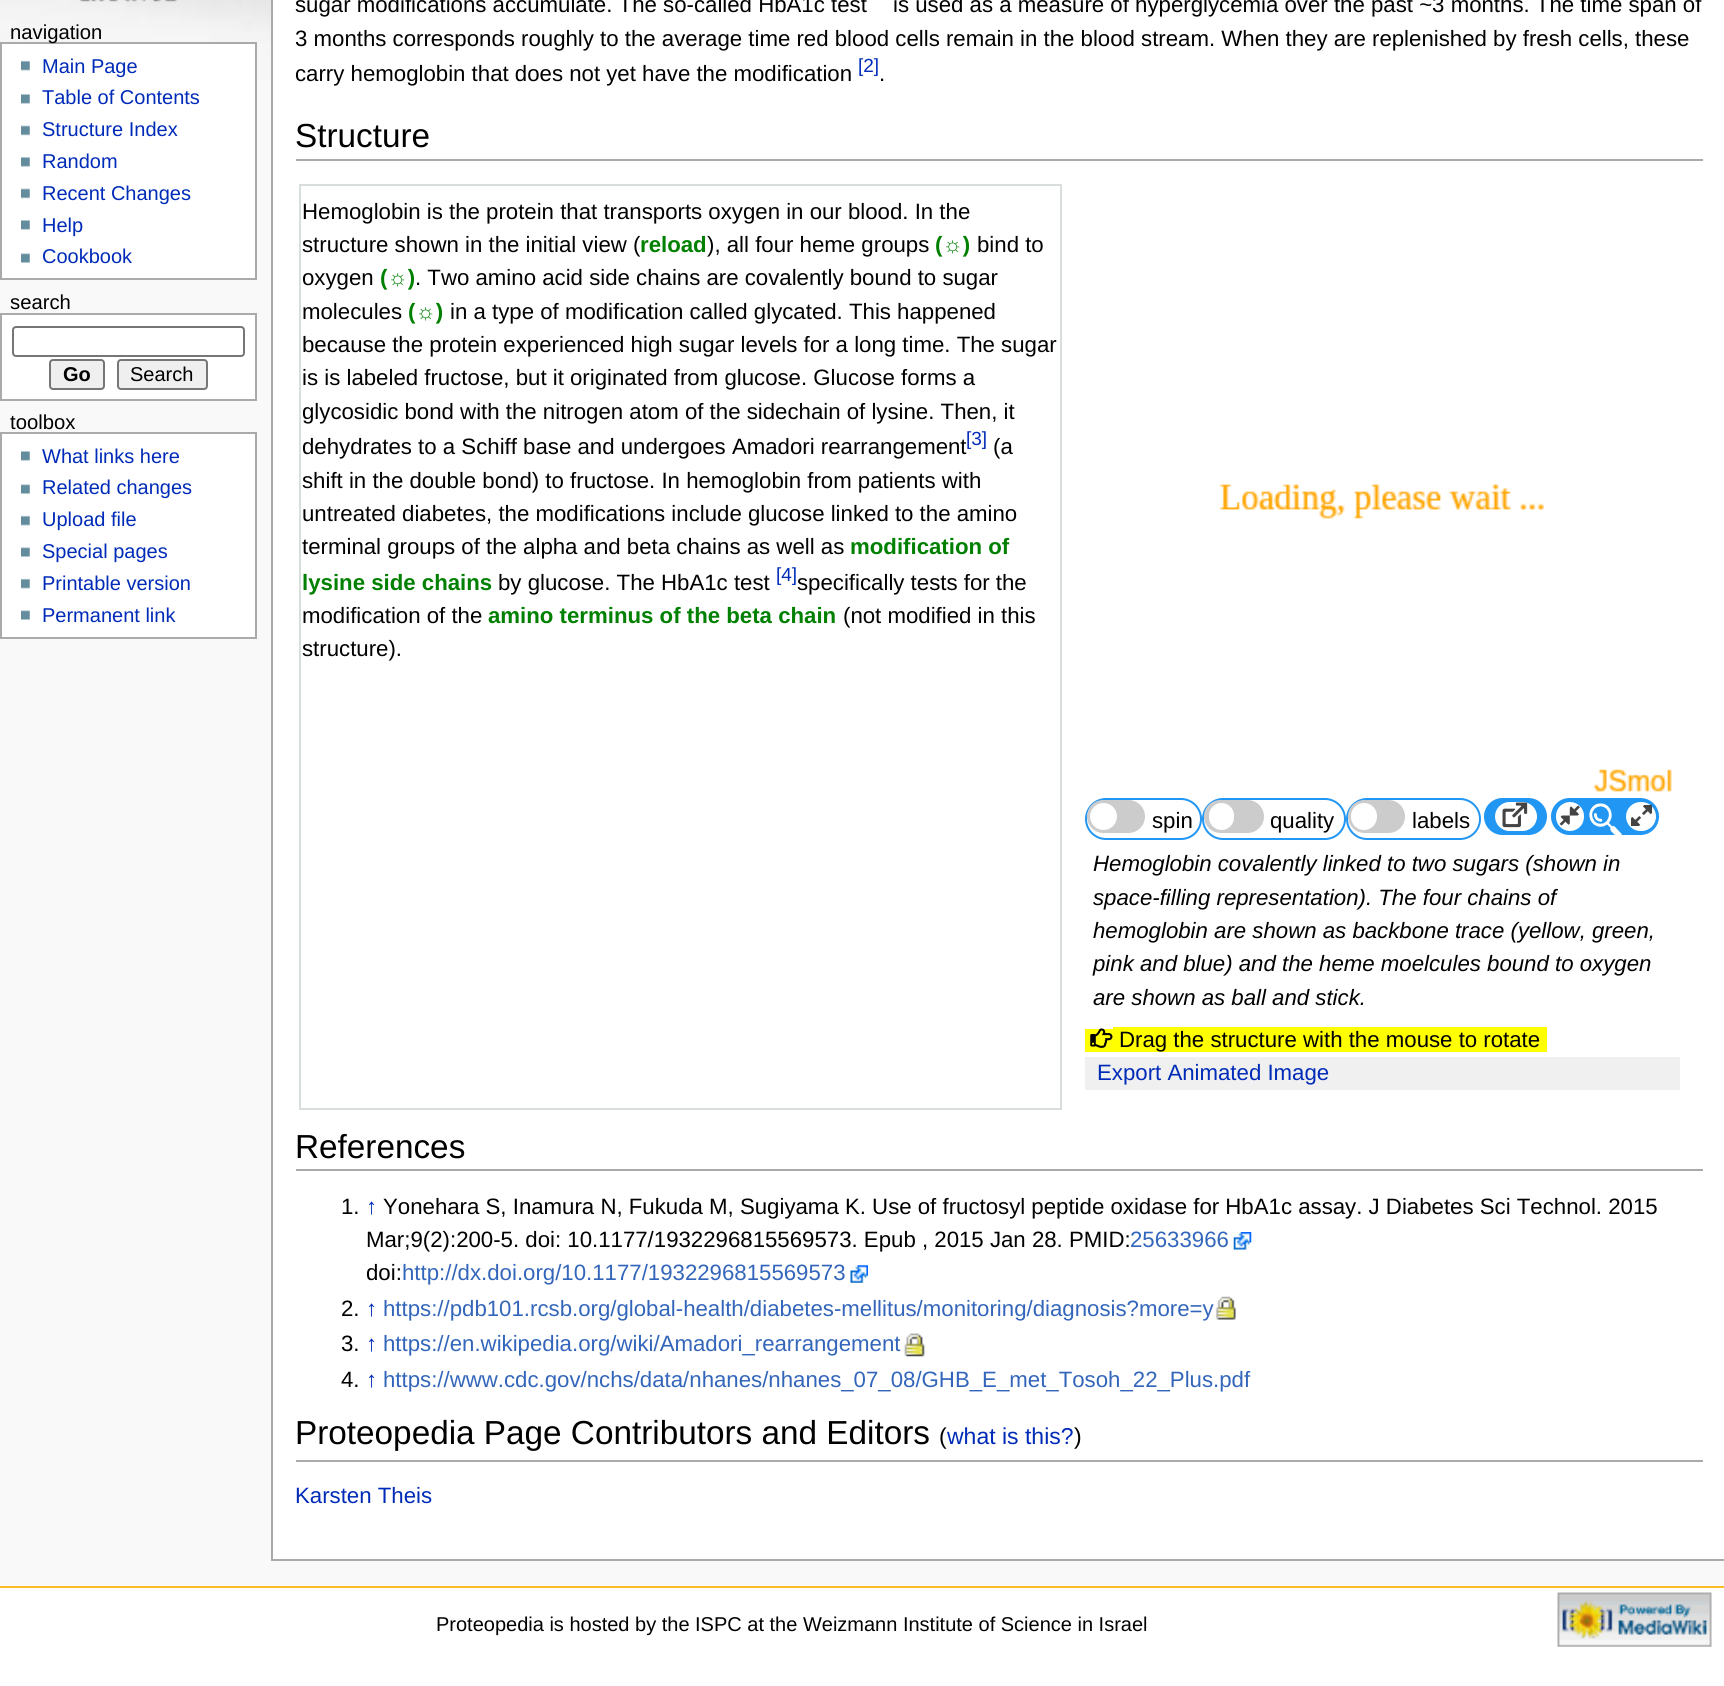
#include <cairo.h>
#include <math.h>
#include <stddef.h>

static cairo_t *ctx;

static void use_color(int r, int g, int b) {
    cairo_set_source_rgb(ctx, r / 255.0, g / 255.0, b / 255.0);
}

static void round_rect(double x, double y, double w, double h, double r) {
    cairo_new_sub_path(ctx);
    cairo_arc(ctx, x + w - r, y + h - r, r, 0, M_PI / 2);
    cairo_arc(ctx, x + r, y + h - r, r, M_PI / 2, M_PI);
    cairo_arc(ctx, x + r, y + r, r, M_PI, 1.5 * M_PI);
    cairo_arc(ctx, x + w - r, y + r, r, 1.5 * M_PI, 2 * M_PI);
    cairo_close_path(ctx);
}

static void picture(const char *path, double x, double y, double w, double h) {
    cairo_surface_t *image = cairo_image_surface_create_from_png(path);
    cairo_save(ctx);
    cairo_set_source_surface(ctx, image, x, y);
    cairo_rectangle(ctx, x, y, w, h);
    cairo_fill(ctx);
    cairo_restore(ctx);
    cairo_surface_destroy(image);
}

int main(void) {
    cairo_surface_t *surface = cairo_image_surface_create(CAIRO_FORMAT_RGB24, 1724, 1686);
    ctx = cairo_create(surface);
    cairo_font_options_t *options = cairo_font_options_create();
    cairo_font_options_set_hint_metrics(options, CAIRO_HINT_METRICS_OFF);
    cairo_font_options_set_hint_style(options, CAIRO_HINT_STYLE_NONE);
    cairo_set_font_options(ctx, options);
    cairo_set_miter_limit(ctx, 4);
    use_color(249, 249, 249);
    cairo_paint(ctx);
    picture("img1.png", 0, 0, 271, 81);
    picture("img2.png", 80, 0, 98, 2);
    use_color(255, 255, 255);
    cairo_rectangle(ctx, 1, 43, 255, 236);
    cairo_fill_preserve(ctx);
    use_color(170, 170, 170);
    cairo_stroke(ctx);
    cairo_select_font_face(ctx, "Liberation Sans", CAIRO_FONT_SLANT_NORMAL, CAIRO_FONT_WEIGHT_NORMAL);
    cairo_set_font_size(ctx, 20.25);
    use_color(0, 0, 0);
    cairo_move_to(ctx, 10, 39);
    cairo_show_text(ctx, "navigation");
    picture("img3.png", 21, 60, 9, 11);
    cairo_set_font_size(ctx, 20);
    use_color(0, 43, 184);
    cairo_move_to(ctx, 42, 73);
    cairo_show_text(ctx, "Main Page");
    picture("img4.png", 21, 94, 9, 10);
    cairo_move_to(ctx, 42, 104);
    cairo_show_text(ctx, "Table of Contents");
    picture("img5.png", 21, 125, 9, 11);
    cairo_move_to(ctx, 42, 136);
    cairo_show_text(ctx, "Structure Index");
    picture("img4.png", 21, 157, 9, 10);
    cairo_move_to(ctx, 42, 168);
    cairo_show_text(ctx, "Random");
    picture("img5.png", 21, 188, 9, 11);
    cairo_move_to(ctx, 42, 200);
    cairo_show_text(ctx, "Recent Changes");
    picture("img4.png", 21, 220, 9, 10);
    cairo_move_to(ctx, 42, 232);
    cairo_show_text(ctx, "Help");
    picture("img6.png", 21, 253, 9, 10);
    cairo_move_to(ctx, 42, 263);
    cairo_show_text(ctx, "Cookbook");
    cairo_set_font_size(ctx, 20.25);
    use_color(0, 0, 0);
    cairo_move_to(ctx, 10, 309);
    cairo_show_text(ctx, "search");
    use_color(255, 255, 255);
    cairo_rectangle(ctx, 1, 314, 255, 86);
    cairo_fill_preserve(ctx);
    use_color(170, 170, 170);
    cairo_stroke(ctx);
    round_rect(13, 327, 231, 29, 3);
    use_color(118, 118, 118);
    cairo_stroke(ctx);
    use_color(239, 239, 239);
    round_rect(50, 360, 54, 29, 3);
    cairo_fill_preserve(ctx);
    use_color(118, 118, 118);
    cairo_stroke(ctx);
    cairo_select_font_face(ctx, "Liberation Sans", CAIRO_FONT_SLANT_NORMAL, CAIRO_FONT_WEIGHT_BOLD);
    cairo_set_font_size(ctx, 20);
    use_color(0, 0, 0);
    cairo_move_to(ctx, 63, 381);
    cairo_show_text(ctx, "Go");
    use_color(239, 239, 239);
    round_rect(118, 360, 89, 29, 3);
    cairo_fill_preserve(ctx);
    use_color(118, 118, 118);
    cairo_stroke(ctx);
    cairo_select_font_face(ctx, "Liberation Sans", CAIRO_FONT_SLANT_NORMAL, CAIRO_FONT_WEIGHT_NORMAL);
    use_color(0, 0, 0);
    cairo_move_to(ctx, 130, 381);
    cairo_show_text(ctx, "Search");
    cairo_set_font_size(ctx, 20.25);
    cairo_move_to(ctx, 10, 429);
    cairo_show_text(ctx, "toolbox");
    use_color(255, 255, 255);
    cairo_rectangle(ctx, 1, 433, 255, 205);
    cairo_fill_preserve(ctx);
    use_color(170, 170, 170);
    cairo_stroke(ctx);
    picture("img4.png", 21, 451, 9, 10);
    cairo_set_font_size(ctx, 20);
    use_color(0, 43, 184);
    cairo_move_to(ctx, 42, 463);
    cairo_show_text(ctx, "What links here");
    picture("img6.png", 21, 484, 9, 10);
    cairo_move_to(ctx, 42, 494);
    cairo_show_text(ctx, "Related changes");
    picture("img3.png", 21, 515, 9, 11);
    cairo_move_to(ctx, 42, 526);
    cairo_show_text(ctx, "Upload file");
    picture("img6.png", 21, 547, 9, 10);
    cairo_move_to(ctx, 42, 558);
    cairo_show_text(ctx, "Special pages");
    picture("img3.png", 21, 578, 9, 11);
    cairo_move_to(ctx, 42, 590);
    cairo_show_text(ctx, "Printable version");
    picture("img6.png", 21, 610, 9, 10);
    cairo_move_to(ctx, 42, 622);
    cairo_show_text(ctx, "Permanent link");
    use_color(255, 255, 255);
    cairo_rectangle(ctx, 273, 0, 1451, 1559);
    cairo_fill(ctx);
    use_color(170, 170, 170);
    cairo_rectangle(ctx, 271, 1559, 1453, 2);
    cairo_fill(ctx);
    cairo_rectangle(ctx, 271, 0, 2, 1561);
    cairo_fill(ctx);
    cairo_set_font_size(ctx, 22.22);
    use_color(0, 0, 0);
    cairo_move_to(ctx, 295, 12);
    cairo_show_text(ctx, "sugar modifications accumulate. The so-called HbA1c test");
    cairo_move_to(ctx, 893, 12);
    cairo_show_text(ctx, "is used as a measure of hyperglycemia over the past ~3 months. The time span of");
    cairo_move_to(ctx, 295, 46);
    cairo_show_text(ctx, "3 months corresponds roughly to the average time red blood cells remain in the blood stream. When they are replenished by fresh cells, these");
    cairo_move_to(ctx, 295, 81);
    cairo_show_text(ctx, "carry hemoglobin that does not yet have the modification");
    cairo_set_font_size(ctx, 19);
    use_color(0, 43, 184);
    cairo_move_to(ctx, 858, 72);
    cairo_show_text(ctx, "[2]");
    cairo_set_font_size(ctx, 22.22);
    use_color(0, 0, 0);
    cairo_move_to(ctx, 879, 81);
    cairo_show_text(ctx, ".");
    use_color(170, 170, 170);
    cairo_rectangle(ctx, 296, 159, 1407, 2);
    cairo_fill(ctx);
    cairo_set_font_size(ctx, 33.3);
    use_color(0, 0, 0);
    cairo_move_to(ctx, 295, 147);
    cairo_show_text(ctx, "Structure");
    cairo_rectangle(ctx, 300, 185, 761, 924);
    use_color(216, 223, 218);
    cairo_stroke(ctx);
    cairo_set_font_size(ctx, 22.22);
    use_color(0, 0, 0);
    cairo_move_to(ctx, 302, 219);
    cairo_show_text(ctx, "Hemoglobin is the protein that transports oxygen in our blood. In the");
    cairo_move_to(ctx, 302, 252);
    cairo_show_text(ctx, "structure shown in the initial view (");
    cairo_select_font_face(ctx, "Liberation Sans", CAIRO_FONT_SLANT_NORMAL, CAIRO_FONT_WEIGHT_BOLD);
    use_color(0, 128, 0);
    cairo_move_to(ctx, 640, 252);
    cairo_show_text(ctx, "reload");
    cairo_select_font_face(ctx, "Liberation Sans", CAIRO_FONT_SLANT_NORMAL, CAIRO_FONT_WEIGHT_NORMAL);
    use_color(0, 0, 0);
    cairo_move_to(ctx, 707, 252);
    cairo_show_text(ctx, "), all four heme groups");
    cairo_select_font_face(ctx, "Liberation Sans", CAIRO_FONT_SLANT_NORMAL, CAIRO_FONT_WEIGHT_BOLD);
    use_color(0, 128, 0);
    cairo_move_to(ctx, 935, 252);
    cairo_show_text(ctx, "(☼)");
    cairo_select_font_face(ctx, "Liberation Sans", CAIRO_FONT_SLANT_NORMAL, CAIRO_FONT_WEIGHT_NORMAL);
    use_color(0, 0, 0);
    cairo_move_to(ctx, 977, 252);
    cairo_show_text(ctx, "bind to");
    cairo_move_to(ctx, 302, 285);
    cairo_show_text(ctx, "oxygen");
    cairo_select_font_face(ctx, "Liberation Sans", CAIRO_FONT_SLANT_NORMAL, CAIRO_FONT_WEIGHT_BOLD);
    use_color(0, 128, 0);
    cairo_move_to(ctx, 380, 285);
    cairo_show_text(ctx, "(☼)");
    cairo_select_font_face(ctx, "Liberation Sans", CAIRO_FONT_SLANT_NORMAL, CAIRO_FONT_WEIGHT_NORMAL);
    use_color(0, 0, 0);
    cairo_move_to(ctx, 415, 285);
    cairo_show_text(ctx, ". Two amino acid side chains are covalently bound to sugar");
    cairo_move_to(ctx, 302, 319);
    cairo_show_text(ctx, "molecules");
    cairo_select_font_face(ctx, "Liberation Sans", CAIRO_FONT_SLANT_NORMAL, CAIRO_FONT_WEIGHT_BOLD);
    use_color(0, 128, 0);
    cairo_move_to(ctx, 408, 319);
    cairo_show_text(ctx, "(☼)");
    cairo_select_font_face(ctx, "Liberation Sans", CAIRO_FONT_SLANT_NORMAL, CAIRO_FONT_WEIGHT_NORMAL);
    use_color(0, 0, 0);
    cairo_move_to(ctx, 450, 319);
    cairo_show_text(ctx, "in a type of modification called glycated. This happened");
    cairo_move_to(ctx, 302, 352);
    cairo_show_text(ctx, "because the protein experienced high sugar levels for a long time. The sugar");
    cairo_move_to(ctx, 302, 385);
    cairo_show_text(ctx, "is is labeled fructose, but it originated from glucose. Glucose forms a");
    cairo_move_to(ctx, 302, 419);
    cairo_show_text(ctx, "glycosidic bond with the nitrogen atom of the sidechain of lysine. Then, it");
    cairo_move_to(ctx, 302, 454);
    cairo_show_text(ctx, "dehydrates to a Schiff base and undergoes Amadori rearrangement");
    cairo_set_font_size(ctx, 19);
    use_color(0, 43, 184);
    cairo_move_to(ctx, 966, 445);
    cairo_show_text(ctx, "[3]");
    cairo_set_font_size(ctx, 22.22);
    use_color(0, 0, 0);
    cairo_move_to(ctx, 993, 454);
    cairo_show_text(ctx, "(a");
    cairo_move_to(ctx, 302, 488);
    cairo_show_text(ctx, "shift in the double bond) to fructose. In hemoglobin from patients with");
    cairo_move_to(ctx, 302, 521);
    cairo_show_text(ctx, "untreated diabetes, the modifications include glucose linked to the amino");
    cairo_move_to(ctx, 302, 554);
    cairo_show_text(ctx, "terminal groups of the alpha and beta chains as well as");
    cairo_select_font_face(ctx, "Liberation Sans", CAIRO_FONT_SLANT_NORMAL, CAIRO_FONT_WEIGHT_BOLD);
    use_color(0, 128, 0);
    cairo_move_to(ctx, 850, 554);
    cairo_show_text(ctx, "modification of");
    cairo_move_to(ctx, 302, 590);
    cairo_show_text(ctx, "lysine side chains");
    cairo_select_font_face(ctx, "Liberation Sans", CAIRO_FONT_SLANT_NORMAL, CAIRO_FONT_WEIGHT_NORMAL);
    use_color(0, 0, 0);
    cairo_move_to(ctx, 498, 590);
    cairo_show_text(ctx, "by glucose. The HbA1c test");
    cairo_set_font_size(ctx, 19);
    use_color(0, 43, 184);
    cairo_move_to(ctx, 776, 581);
    cairo_show_text(ctx, "[4]");
    cairo_set_font_size(ctx, 22.22);
    use_color(0, 0, 0);
    cairo_move_to(ctx, 797, 590);
    cairo_show_text(ctx, "specifically tests for the");
    cairo_move_to(ctx, 302, 623);
    cairo_show_text(ctx, "modification of the");
    cairo_select_font_face(ctx, "Liberation Sans", CAIRO_FONT_SLANT_NORMAL, CAIRO_FONT_WEIGHT_BOLD);
    use_color(0, 128, 0);
    cairo_move_to(ctx, 488, 623);
    cairo_show_text(ctx, "amino terminus of the beta chain");
    cairo_select_font_face(ctx, "Liberation Sans", CAIRO_FONT_SLANT_NORMAL, CAIRO_FONT_WEIGHT_NORMAL);
    use_color(0, 0, 0);
    cairo_move_to(ctx, 843, 623);
    cairo_show_text(ctx, "(not modified in this");
    cairo_move_to(ctx, 302, 656);
    cairo_show_text(ctx, "structure).");
    picture("img7.png", 1219, 484, 453, 308);
    round_rect(1086, 799, 115, 40, 20);
    use_color(33, 150, 243);
    cairo_stroke(ctx);
    use_color(204, 204, 204);
    round_rect(1087, 800, 58, 33, 16.5);
    cairo_fill(ctx);
    use_color(255, 255, 255);
    cairo_arc(ctx, 1103.5, 816.5, 13.5, 0, 2 * M_PI);
    cairo_fill(ctx);
    use_color(0, 0, 0);
    cairo_move_to(ctx, 1152, 828);
    cairo_show_text(ctx, "spin");
    round_rect(1203, 799, 142, 40, 20);
    use_color(33, 150, 243);
    cairo_stroke(ctx);
    use_color(204, 204, 204);
    round_rect(1204, 800, 60, 33, 16.5);
    cairo_fill(ctx);
    use_color(255, 255, 255);
    round_rect(1209, 803, 25, 27, 12.5);
    cairo_fill(ctx);
    use_color(0, 0, 0);
    cairo_move_to(ctx, 1270, 828);
    cairo_show_text(ctx, "quality");
    round_rect(1347, 799, 133, 40, 20);
    use_color(33, 150, 243);
    cairo_stroke(ctx);
    use_color(204, 204, 204);
    round_rect(1348, 800, 57, 33, 16.5);
    cairo_fill(ctx);
    use_color(255, 255, 255);
    round_rect(1351, 803, 26, 27, 13);
    cairo_fill(ctx);
    use_color(0, 0, 0);
    cairo_move_to(ctx, 1412, 828);
    cairo_show_text(ctx, "labels");
    use_color(33, 150, 243);
    round_rect(1485, 799, 61, 35, 17.5);
    cairo_fill_preserve(ctx);
    cairo_stroke(ctx);
    use_color(255, 255, 255);
    round_rect(1495, 802, 42, 29, 14.5);
    cairo_fill(ctx);
    picture("img8.png", 1502, 802, 26, 26);
    use_color(33, 150, 243);
    round_rect(1552, 799, 106, 35, 17.5);
    cairo_fill_preserve(ctx);
    cairo_stroke(ctx);
    use_color(255, 255, 255);
    round_rect(1556, 802, 28, 29, 14);
    cairo_fill(ctx);
    picture("img9.png", 1559, 805, 21, 21);
    picture("img10.png", 1589, 803, 33, 32);
    round_rect(1626, 802, 30, 29, 14.5);
    cairo_fill(ctx);
    picture("img11.png", 1631, 805, 21, 21);
    cairo_select_font_face(ctx, "Liberation Sans", CAIRO_FONT_SLANT_ITALIC, CAIRO_FONT_WEIGHT_NORMAL);
    use_color(0, 0, 0);
    cairo_move_to(ctx, 1093, 871);
    cairo_show_text(ctx, "Hemoglobin covalently linked to two sugars (shown in");
    cairo_move_to(ctx, 1093, 905);
    cairo_show_text(ctx, "space-filling representation). The four chains of");
    cairo_move_to(ctx, 1093, 938);
    cairo_show_text(ctx, "hemoglobin are shown as backbone trace (yellow, green,");
    cairo_move_to(ctx, 1093, 971);
    cairo_show_text(ctx, "pink and blue) and the heme moelcules bound to oxygen");
    cairo_move_to(ctx, 1093, 1005);
    cairo_show_text(ctx, "are shown as ball and stick.");
    use_color(255, 255, 0);
    cairo_rectangle(ctx, 1085, 1029, 28, 23);
    cairo_fill(ctx);
    cairo_rectangle(ctx, 1113, 1027, 434, 25);
    cairo_fill(ctx);
    picture("img12.png", 1090, 1028, 23, 20);
    cairo_select_font_face(ctx, "Liberation Sans", CAIRO_FONT_SLANT_NORMAL, CAIRO_FONT_WEIGHT_NORMAL);
    use_color(0, 0, 0);
    cairo_move_to(ctx, 1119, 1047);
    cairo_show_text(ctx, "Drag the structure with the mouse to rotate");
    use_color(240, 240, 240);
    cairo_rectangle(ctx, 1085, 1057, 595, 33);
    cairo_fill(ctx);
    use_color(0, 43, 184);
    cairo_move_to(ctx, 1097, 1080);
    cairo_show_text(ctx, "Export Animated Image");
    use_color(170, 170, 170);
    cairo_rectangle(ctx, 296, 1169, 1407, 2);
    cairo_fill(ctx);
    cairo_set_font_size(ctx, 33.3);
    use_color(0, 0, 0);
    cairo_move_to(ctx, 295, 1158);
    cairo_show_text(ctx, "References");
    cairo_set_font_size(ctx, 22.22);
    cairo_move_to(ctx, 341, 1214);
    cairo_show_text(ctx, "1.");
    use_color(0, 43, 184);
    cairo_move_to(ctx, 366, 1214);
    cairo_show_text(ctx, "↑");
    use_color(0, 0, 0);
    cairo_move_to(ctx, 383, 1214);
    cairo_show_text(ctx, "Yonehara S, Inamura N, Fukuda M, Sugiyama K. Use of fructosyl peptide oxidase for HbA1c assay. J Diabetes Sci Technol. 2015");
    cairo_move_to(ctx, 366, 1247);
    cairo_show_text(ctx, "Mar;9(2):200-5. doi: 10.1177/1932296815569573. Epub , 2015 Jan 28. PMID:");
    use_color(51, 102, 187);
    cairo_move_to(ctx, 1130, 1247);
    cairo_show_text(ctx, "25633966");
    picture("img13.png", 1233, 1232, 19, 18);
    use_color(0, 0, 0);
    cairo_move_to(ctx, 366, 1280);
    cairo_show_text(ctx, "doi:");
    use_color(51, 102, 187);
    cairo_move_to(ctx, 402, 1280);
    cairo_show_text(ctx, "http://dx.doi.org/10.1177/1932296815569573");
    picture("img14.png", 850, 1265, 18, 18);
    use_color(0, 0, 0);
    cairo_move_to(ctx, 341, 1316);
    cairo_show_text(ctx, "2.");
    use_color(0, 43, 184);
    cairo_move_to(ctx, 366, 1316);
    cairo_show_text(ctx, "↑");
    use_color(51, 102, 187);
    cairo_move_to(ctx, 383, 1316);
    cairo_show_text(ctx, "https://pdb101.rcsb.org/global-health/diabetes-mellitus/monitoring/diagnosis?more=y");
    picture("img15.png", 1215, 1296, 21, 24);
    use_color(0, 0, 0);
    cairo_move_to(ctx, 341, 1351);
    cairo_show_text(ctx, "3.");
    use_color(0, 43, 184);
    cairo_move_to(ctx, 366, 1351);
    cairo_show_text(ctx, "↑");
    use_color(51, 102, 187);
    cairo_move_to(ctx, 383, 1351);
    cairo_show_text(ctx, "https://en.wikipedia.org/wiki/Amadori_rearrangement");
    picture("img16.png", 904, 1333, 21, 24);
    use_color(0, 0, 0);
    cairo_move_to(ctx, 341, 1387);
    cairo_show_text(ctx, "4.");
    use_color(0, 43, 184);
    cairo_move_to(ctx, 366, 1387);
    cairo_show_text(ctx, "↑");
    use_color(51, 102, 187);
    cairo_move_to(ctx, 383, 1387);
    cairo_show_text(ctx, "https://www.cdc.gov/nchs/data/nhanes/nhanes_07_08/GHB_E_met_Tosoh_22_Plus.pdf");
    use_color(170, 170, 170);
    cairo_rectangle(ctx, 296, 1460, 1407, 2);
    cairo_fill(ctx);
    cairo_set_font_size(ctx, 33.3);
    use_color(0, 0, 0);
    cairo_move_to(ctx, 295, 1444);
    cairo_show_text(ctx, "Proteopedia Page Contributors and Editors");
    cairo_set_font_size(ctx, 23);
    cairo_move_to(ctx, 939, 1444);
    cairo_show_text(ctx, "(");
    use_color(0, 43, 184);
    cairo_move_to(ctx, 947, 1444);
    cairo_show_text(ctx, "what is this?");
    use_color(0, 0, 0);
    cairo_move_to(ctx, 1074, 1444);
    cairo_show_text(ctx, ")");
    cairo_set_font_size(ctx, 22.22);
    use_color(0, 43, 184);
    cairo_move_to(ctx, 295, 1503);
    cairo_show_text(ctx, "Karsten Theis");
    use_color(255, 255, 255);
    cairo_rectangle(ctx, 0, 1588, 1724, 98);
    cairo_fill(ctx);
    use_color(250, 189, 35);
    cairo_rectangle(ctx, 0, 1586, 1724, 2);
    cairo_fill(ctx);
    cairo_set_font_size(ctx, 20);
    use_color(0, 0, 0);
    cairo_move_to(ctx, 436, 1631);
    cairo_show_text(ctx, "Proteopedia is hosted by the ISPC at the Weizmann Institute of Science in Israel");
    picture("img17.png", 1557, 1592, 155, 55);
    cairo_surface_write_to_png(surface, "result.png");
    cairo_font_options_destroy(options);
    cairo_destroy(ctx);
    cairo_surface_destroy(surface);
    return 0;
}
